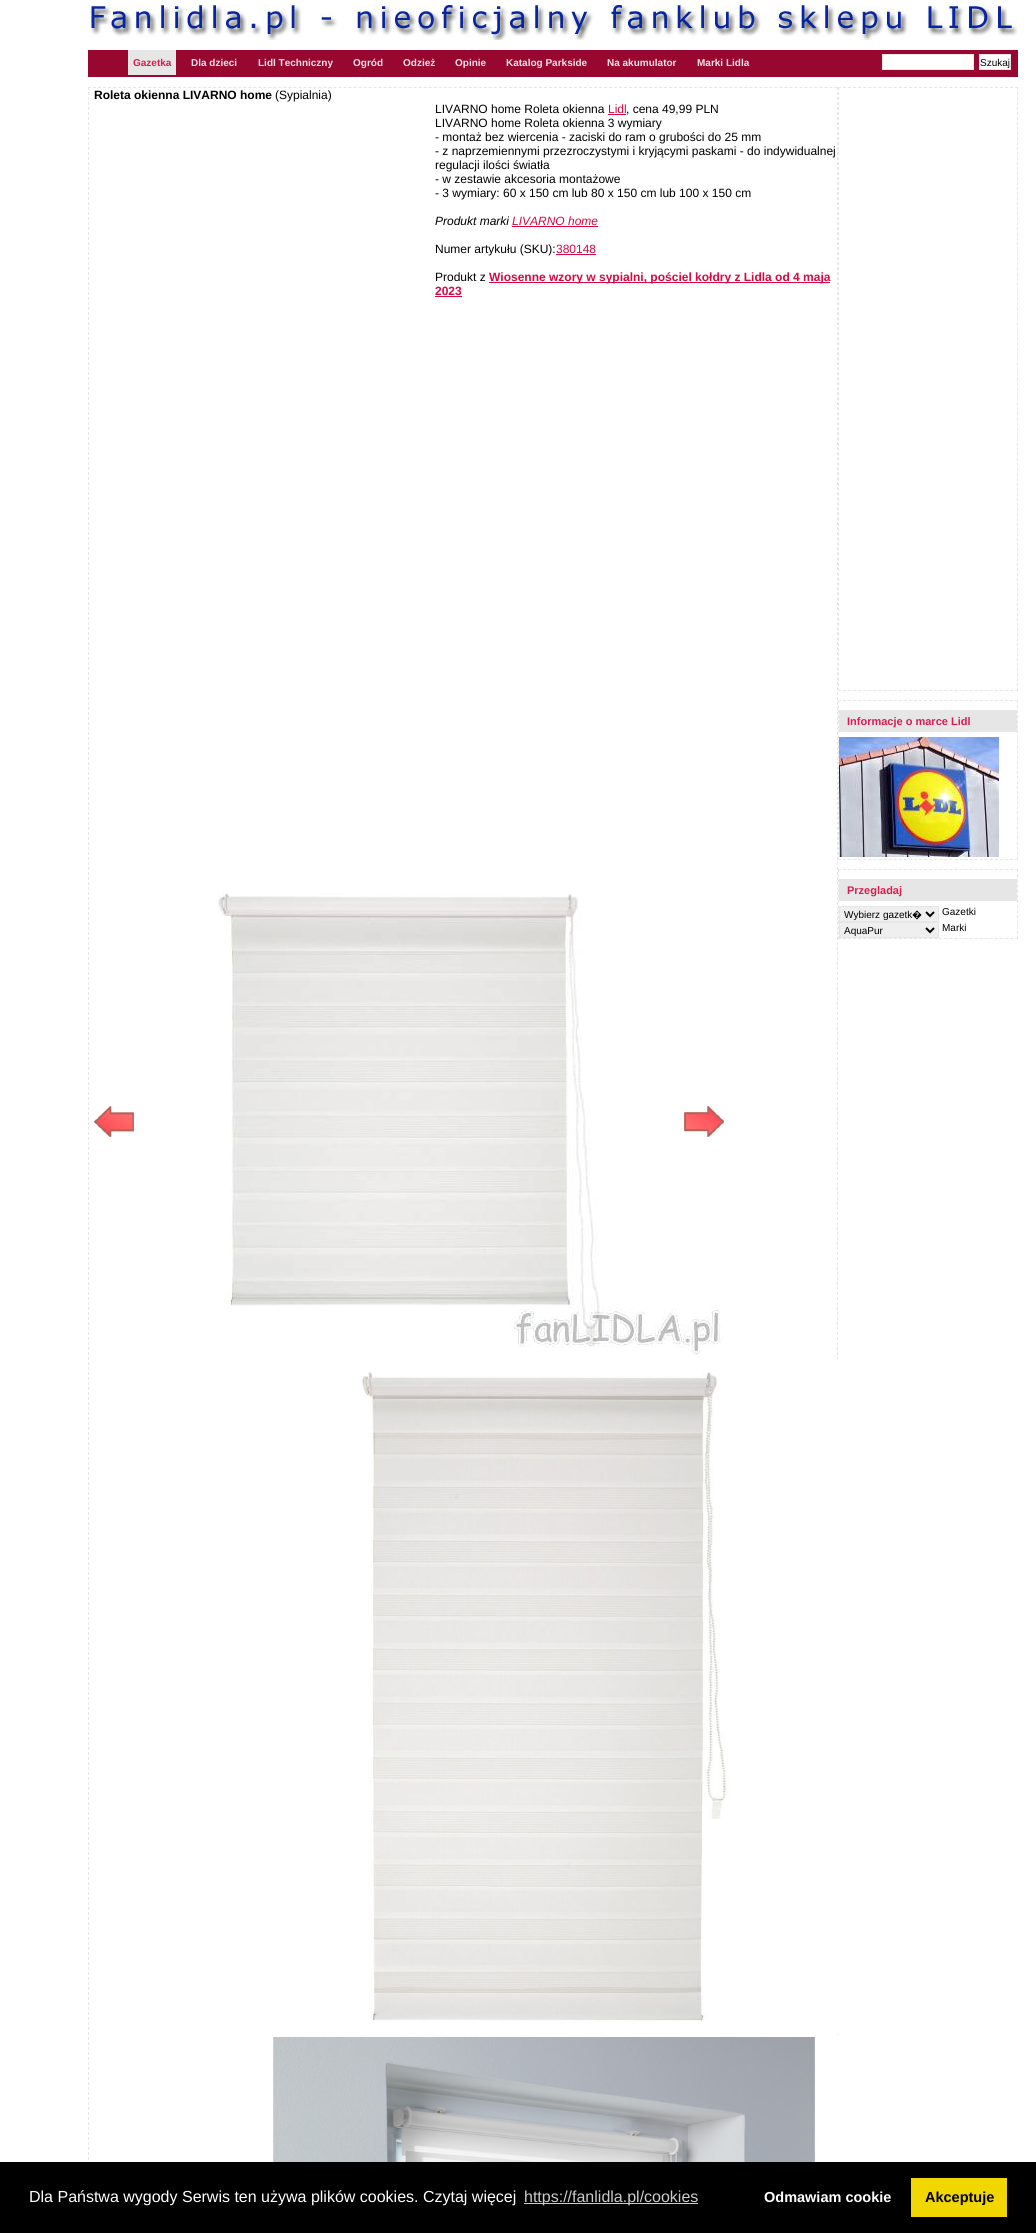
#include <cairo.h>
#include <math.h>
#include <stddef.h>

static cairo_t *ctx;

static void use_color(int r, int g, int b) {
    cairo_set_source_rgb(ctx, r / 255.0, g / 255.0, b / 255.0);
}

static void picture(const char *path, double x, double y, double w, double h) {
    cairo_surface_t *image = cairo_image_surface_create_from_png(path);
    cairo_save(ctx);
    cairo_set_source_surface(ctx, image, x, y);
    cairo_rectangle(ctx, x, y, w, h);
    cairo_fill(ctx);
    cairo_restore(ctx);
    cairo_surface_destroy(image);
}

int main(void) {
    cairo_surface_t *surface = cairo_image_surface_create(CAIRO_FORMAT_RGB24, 1036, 2233);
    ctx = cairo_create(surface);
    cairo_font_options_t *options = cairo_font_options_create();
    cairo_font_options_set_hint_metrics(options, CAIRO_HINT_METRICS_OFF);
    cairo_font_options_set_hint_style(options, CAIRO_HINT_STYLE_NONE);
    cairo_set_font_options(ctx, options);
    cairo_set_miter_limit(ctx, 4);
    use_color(255, 255, 255);
    cairo_paint(ctx);
    picture("img1.png", 88, 5, 930, 35);
    use_color(151, 7, 48);
    cairo_rectangle(ctx, 88, 50, 930, 27);
    cairo_fill(ctx);
    use_color(230, 230, 230);
    cairo_rectangle(ctx, 128, 50, 48, 25);
    cairo_fill(ctx);
    cairo_select_font_face(ctx, "Liberation Sans", CAIRO_FONT_SLANT_NORMAL, CAIRO_FONT_WEIGHT_BOLD);
    cairo_set_font_size(ctx, 10);
    use_color(217, 28, 82);
    cairo_move_to(ctx, 133, 66);
    cairo_show_text(ctx, "Gazetka");
    use_color(250, 226, 231);
    cairo_move_to(ctx, 191, 66);
    cairo_show_text(ctx, "Dla dzieci");
    cairo_move_to(ctx, 258, 66);
    cairo_show_text(ctx, "Lidl Techniczny");
    cairo_move_to(ctx, 353, 66);
    cairo_show_text(ctx, "Ogród");
    cairo_move_to(ctx, 403, 66);
    cairo_show_text(ctx, "Odzież");
    cairo_move_to(ctx, 455, 66);
    cairo_show_text(ctx, "Opinie");
    cairo_move_to(ctx, 506, 66);
    cairo_show_text(ctx, "Katalog Parkside");
    cairo_move_to(ctx, 607, 66);
    cairo_show_text(ctx, "Na akumulator");
    cairo_move_to(ctx, 697, 66);
    cairo_show_text(ctx, "Marki Lidla");
    use_color(255, 255, 255);
    cairo_rectangle(ctx, 882.5, 54.5, 91, 15);
    cairo_fill_preserve(ctx);
    use_color(230, 230, 230);
    cairo_set_line_width(ctx, 1);
    cairo_stroke(ctx);
    use_color(255, 255, 255);
    cairo_rectangle(ctx, 979.5, 54.5, 31, 15);
    cairo_fill_preserve(ctx);
    use_color(230, 230, 230);
    cairo_stroke(ctx);
    cairo_select_font_face(ctx, "Liberation Sans", CAIRO_FONT_SLANT_NORMAL, CAIRO_FONT_WEIGHT_NORMAL);
    use_color(0, 0, 0);
    cairo_move_to(ctx, 980, 66);
    cairo_show_text(ctx, "Szukaj");
    cairo_new_path(ctx);
    cairo_move_to(ctx, 88, 87.5);
    cairo_line_to(ctx, 838, 87.5);
    use_color(230, 230, 230);
    cairo_set_dash(ctx, (double[]){3, 2.01}, 2, 0);
    cairo_stroke(ctx);
    cairo_new_path(ctx);
    cairo_move_to(ctx, 837.5, 87);
    cairo_line_to(ctx, 837.5, 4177);
    cairo_set_dash(ctx, (double[]){3, 2}, 2, 0);
    cairo_stroke(ctx);
    cairo_new_path(ctx);
    cairo_move_to(ctx, 88.5, 87);
    cairo_line_to(ctx, 88.5, 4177);
    cairo_stroke(ctx);
    cairo_select_font_face(ctx, "Liberation Sans", CAIRO_FONT_SLANT_NORMAL, CAIRO_FONT_WEIGHT_BOLD);
    cairo_set_font_size(ctx, 12);
    use_color(0, 0, 0);
    cairo_move_to(ctx, 94, 99);
    cairo_show_text(ctx, "Roleta okienna LIVARNO home");
    cairo_select_font_face(ctx, "Liberation Sans", CAIRO_FONT_SLANT_NORMAL, CAIRO_FONT_WEIGHT_NORMAL);
    cairo_move_to(ctx, 275, 99);
    cairo_show_text(ctx, "(Sypialnia)");
    cairo_move_to(ctx, 435, 113);
    cairo_show_text(ctx, "LIVARNO home Roleta okienna");
    use_color(215, 8, 67);
    cairo_move_to(ctx, 608, 113);
    cairo_show_text(ctx, "Lidl");
    cairo_rectangle(ctx, 608, 114, 18, 1);
    cairo_fill(ctx);
    use_color(0, 0, 0);
    cairo_move_to(ctx, 626, 113);
    cairo_show_text(ctx, ", cena 49,99 PLN");
    cairo_move_to(ctx, 435, 127);
    cairo_show_text(ctx, "LIVARNO home Roleta okienna 3 wymiary");
    cairo_move_to(ctx, 435, 141);
    cairo_show_text(ctx, "- montaż bez wiercenia - zaciski do ram o grubości do 25 mm");
    cairo_move_to(ctx, 435, 155);
    cairo_show_text(ctx, "- z naprzemiennymi przezroczystymi i kryjącymi paskami - do indywidualnej");
    cairo_move_to(ctx, 435, 169);
    cairo_show_text(ctx, "regulacji ilości światła");
    cairo_move_to(ctx, 435, 183);
    cairo_show_text(ctx, "- w zestawie akcesoria montażowe");
    cairo_move_to(ctx, 435, 197);
    cairo_show_text(ctx, "- 3 wymiary: 60 x 150 cm lub 80 x 150 cm lub 100 x 150 cm");
    cairo_select_font_face(ctx, "Liberation Sans", CAIRO_FONT_SLANT_ITALIC, CAIRO_FONT_WEIGHT_NORMAL);
    cairo_move_to(ctx, 435, 225);
    cairo_show_text(ctx, "Produkt marki");
    use_color(215, 8, 67);
    cairo_move_to(ctx, 512, 225);
    cairo_show_text(ctx, "LIVARNO home");
    cairo_rectangle(ctx, 512, 226, 86, 1);
    cairo_fill(ctx);
    cairo_select_font_face(ctx, "Liberation Sans", CAIRO_FONT_SLANT_NORMAL, CAIRO_FONT_WEIGHT_NORMAL);
    use_color(0, 0, 0);
    cairo_move_to(ctx, 435, 253);
    cairo_show_text(ctx, "Numer artykułu (SKU):");
    use_color(215, 8, 67);
    cairo_move_to(ctx, 556, 253);
    cairo_show_text(ctx, "380148");
    cairo_rectangle(ctx, 556, 254, 40, 1);
    cairo_fill(ctx);
    use_color(0, 0, 0);
    cairo_move_to(ctx, 435, 281);
    cairo_show_text(ctx, "Produkt z");
    use_color(215, 8, 67);
    cairo_rectangle(ctx, 489, 282, 341, 1);
    cairo_fill(ctx);
    cairo_select_font_face(ctx, "Liberation Sans", CAIRO_FONT_SLANT_NORMAL, CAIRO_FONT_WEIGHT_BOLD);
    cairo_move_to(ctx, 489, 281);
    cairo_show_text(ctx, "Wiosenne wzory w sypialni, pościel kołdry z Lidla od 4 maja");
    cairo_move_to(ctx, 435, 295);
    cairo_show_text(ctx, "2023");
    cairo_rectangle(ctx, 435, 296, 27, 1);
    cairo_fill(ctx);
    picture("img2.png", 94, 1106, 40, 31);
    picture("img3.png", 218, 892, 505, 464);
    picture("img4.png", 684, 1106, 40, 31);
    picture("img5.png", 359, 1359, 479, 675);
    picture("img6.png", 273, 2037, 565, 125);
    cairo_new_path(ctx);
    cairo_move_to(ctx, 838, 87.5);
    cairo_line_to(ctx, 1018, 87.5);
    use_color(230, 230, 230);
    cairo_set_dash(ctx, (double[]){3, 2.06}, 2, 0);
    cairo_stroke(ctx);
    cairo_new_path(ctx);
    cairo_move_to(ctx, 1017.5, 87);
    cairo_line_to(ctx, 1017.5, 691);
    cairo_set_dash(ctx, (double[]){3, 2.01}, 2, 0);
    cairo_stroke(ctx);
    cairo_new_path(ctx);
    cairo_move_to(ctx, 838, 690.5);
    cairo_line_to(ctx, 1018, 690.5);
    cairo_set_dash(ctx, (double[]){3, 2.06}, 2, 0);
    cairo_stroke(ctx);
    cairo_new_path(ctx);
    cairo_move_to(ctx, 838.5, 87);
    cairo_line_to(ctx, 838.5, 691);
    cairo_set_dash(ctx, (double[]){3, 2.01}, 2, 0);
    cairo_stroke(ctx);
    cairo_new_path(ctx);
    cairo_move_to(ctx, 838, 700.5);
    cairo_line_to(ctx, 1018, 700.5);
    cairo_set_dash(ctx, (double[]){3, 2.06}, 2, 0);
    cairo_stroke(ctx);
    cairo_new_path(ctx);
    cairo_move_to(ctx, 1017.5, 700);
    cairo_line_to(ctx, 1017.5, 860);
    cairo_stroke(ctx);
    cairo_new_path(ctx);
    cairo_move_to(ctx, 838, 859.5);
    cairo_line_to(ctx, 1018, 859.5);
    cairo_stroke(ctx);
    cairo_new_path(ctx);
    cairo_move_to(ctx, 838.5, 700);
    cairo_line_to(ctx, 838.5, 860);
    cairo_stroke(ctx);
    cairo_rectangle(ctx, 839, 710, 178, 22);
    cairo_fill(ctx);
    cairo_set_font_size(ctx, 11);
    use_color(217, 28, 82);
    cairo_move_to(ctx, 847, 725);
    cairo_show_text(ctx, "Informacje o marce Lidl");
    picture("img7.png", 839, 737, 160, 120);
    cairo_new_path(ctx);
    cairo_move_to(ctx, 838, 869.5);
    cairo_line_to(ctx, 1018, 869.5);
    use_color(230, 230, 230);
    cairo_stroke(ctx);
    cairo_new_path(ctx);
    cairo_move_to(ctx, 1017.5, 869);
    cairo_line_to(ctx, 1017.5, 939);
    cairo_set_dash(ctx, (double[]){3, 2.15}, 2, 0);
    cairo_stroke(ctx);
    cairo_new_path(ctx);
    cairo_move_to(ctx, 838, 938.5);
    cairo_line_to(ctx, 1018, 938.5);
    cairo_set_dash(ctx, (double[]){3, 2.06}, 2, 0);
    cairo_stroke(ctx);
    cairo_new_path(ctx);
    cairo_move_to(ctx, 838.5, 869);
    cairo_line_to(ctx, 838.5, 939);
    cairo_set_dash(ctx, (double[]){3, 2.15}, 2, 0);
    cairo_stroke(ctx);
    cairo_rectangle(ctx, 839, 879, 178, 22);
    cairo_fill(ctx);
    use_color(217, 28, 82);
    cairo_move_to(ctx, 847, 894);
    cairo_show_text(ctx, "Przegladaj");
    use_color(239, 239, 239);
    cairo_rectangle(ctx, 839.5, 906.5, 99, 15);
    cairo_fill_preserve(ctx);
    use_color(230, 230, 230);
    cairo_set_dash(ctx, NULL, 0, 0);
    cairo_stroke(ctx);
    cairo_new_path(ctx);
    cairo_move_to(ctx, 926, 912);
    cairo_line_to(ctx, 930, 916);
    cairo_line_to(ctx, 934, 912);
    use_color(0, 0, 0);
    cairo_set_line_width(ctx, 2);
    cairo_stroke(ctx);
    cairo_select_font_face(ctx, "Liberation Sans", CAIRO_FONT_SLANT_NORMAL, CAIRO_FONT_WEIGHT_NORMAL);
    cairo_set_font_size(ctx, 10);
    cairo_move_to(ctx, 844, 918);
    cairo_show_text(ctx, "Wybierz gazetk");
    cairo_select_font_face(ctx, "Noto Sans", CAIRO_FONT_SLANT_NORMAL, CAIRO_FONT_WEIGHT_NORMAL);
    cairo_move_to(ctx, 912, 918);
    cairo_show_text(ctx, "�");
    cairo_select_font_face(ctx, "Liberation Sans", CAIRO_FONT_SLANT_NORMAL, CAIRO_FONT_WEIGHT_NORMAL);
    cairo_move_to(ctx, 942, 915);
    cairo_show_text(ctx, "Gazetki");
    use_color(239, 239, 239);
    cairo_rectangle(ctx, 839.5, 922.5, 99, 15);
    cairo_fill_preserve(ctx);
    use_color(230, 230, 230);
    cairo_set_line_width(ctx, 1);
    cairo_stroke(ctx);
    cairo_new_path(ctx);
    cairo_move_to(ctx, 926, 928);
    cairo_line_to(ctx, 930, 932);
    cairo_line_to(ctx, 934, 928);
    use_color(0, 0, 0);
    cairo_set_line_width(ctx, 2);
    cairo_stroke(ctx);
    cairo_move_to(ctx, 844, 934);
    cairo_show_text(ctx, "AquaPur");
    cairo_move_to(ctx, 942, 931);
    cairo_show_text(ctx, "Marki");
    cairo_rectangle(ctx, 0, 2162, 1036, 71);
    cairo_fill(ctx);
    cairo_set_font_size(ctx, 16);
    use_color(255, 255, 255);
    cairo_move_to(ctx, 29, 2202);
    cairo_show_text(ctx, "Dla Państwa wygody Serwis ten używa plików cookies. Czytaj więcej");
    use_color(204, 204, 204);
    cairo_rectangle(ctx, 524, 2203, 174, 1);
    cairo_fill(ctx);
    cairo_move_to(ctx, 524, 2202);
    cairo_show_text(ctx, "https://fanlidla.pl/cookies");
    cairo_select_font_face(ctx, "Liberation Sans", CAIRO_FONT_SLANT_NORMAL, CAIRO_FONT_WEIGHT_BOLD);
    cairo_set_font_size(ctx, 14.5);
    use_color(255, 255, 255);
    cairo_move_to(ctx, 764, 2202);
    cairo_show_text(ctx, "Odmawiam cookie");
    use_color(241, 214, 0);
    cairo_rectangle(ctx, 911, 2178, 96, 39);
    cairo_fill(ctx);
    use_color(0, 0, 0);
    cairo_move_to(ctx, 925, 2202);
    cairo_show_text(ctx, "Akceptuje");
    cairo_surface_write_to_png(surface, "result.png");
    cairo_font_options_destroy(options);
    cairo_destroy(ctx);
    cairo_surface_destroy(surface);
    return 0;
}
